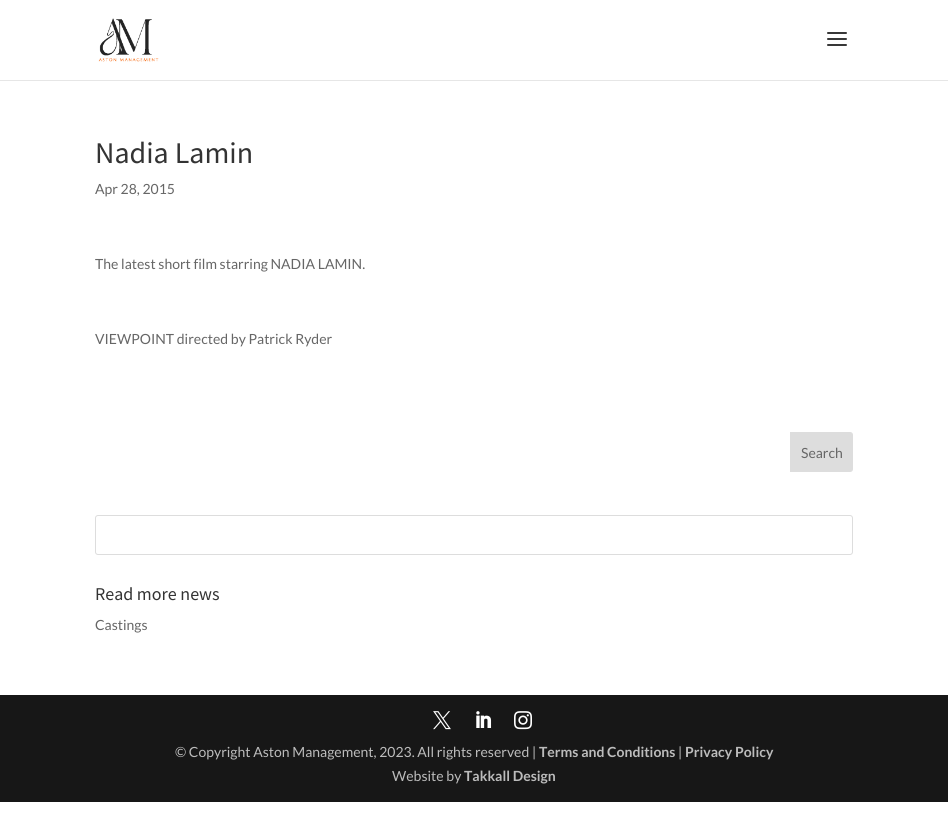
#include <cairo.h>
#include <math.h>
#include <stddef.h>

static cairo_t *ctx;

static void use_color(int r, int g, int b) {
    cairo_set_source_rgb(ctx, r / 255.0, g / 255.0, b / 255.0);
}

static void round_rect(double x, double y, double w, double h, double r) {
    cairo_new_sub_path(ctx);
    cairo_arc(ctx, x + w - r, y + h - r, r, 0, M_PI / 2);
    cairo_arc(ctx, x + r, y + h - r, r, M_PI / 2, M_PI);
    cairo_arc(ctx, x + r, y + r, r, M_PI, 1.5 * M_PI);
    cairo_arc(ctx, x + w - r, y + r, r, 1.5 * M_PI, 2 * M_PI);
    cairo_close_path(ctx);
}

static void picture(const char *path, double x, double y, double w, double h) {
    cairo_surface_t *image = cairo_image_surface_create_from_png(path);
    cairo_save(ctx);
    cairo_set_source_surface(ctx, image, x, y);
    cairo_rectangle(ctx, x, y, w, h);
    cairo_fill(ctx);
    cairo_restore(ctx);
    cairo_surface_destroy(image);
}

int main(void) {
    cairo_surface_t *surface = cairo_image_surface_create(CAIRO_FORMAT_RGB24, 948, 835);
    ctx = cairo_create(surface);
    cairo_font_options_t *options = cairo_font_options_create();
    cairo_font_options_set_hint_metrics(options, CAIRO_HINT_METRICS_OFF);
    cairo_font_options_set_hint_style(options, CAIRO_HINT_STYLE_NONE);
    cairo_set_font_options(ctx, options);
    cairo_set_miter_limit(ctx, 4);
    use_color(255, 255, 255);
    cairo_paint(ctx);
    use_color(230, 230, 230);
    cairo_rectangle(ctx, 0, 80, 948, 1);
    cairo_fill(ctx);
    picture("img1.png", 98, 18, 61, 44);
    picture("img2.png", 827, 32, 20, 14);
    cairo_select_font_face(ctx, "Source Sans Pro", CAIRO_FONT_SLANT_NORMAL, CAIRO_FONT_WEIGHT_NORMAL);
    cairo_set_font_size(ctx, 30);
    use_color(51, 51, 51);
    cairo_move_to(ctx, 95, 163);
    cairo_show_text(ctx, "Nadia Lamin");
    cairo_select_font_face(ctx, "Lato", CAIRO_FONT_SLANT_NORMAL, CAIRO_FONT_WEIGHT_NORMAL);
    cairo_set_font_size(ctx, 14);
    use_color(102, 102, 102);
    cairo_move_to(ctx, 95, 194);
    cairo_show_text(ctx, "Apr 28, 2015");
    cairo_move_to(ctx, 95, 269);
    cairo_show_text(ctx, "The latest short film starring NADIA LAMIN.");
    cairo_move_to(ctx, 95, 344);
    cairo_show_text(ctx, "VIEWPOINT directed by Patrick Ryder");
    use_color(221, 221, 221);
    cairo_new_path(ctx);
    cairo_move_to(ctx, 790.5, 432.5);
    cairo_line_to(ctx, 850, 432.5);
    cairo_curve_to(ctx, 851.5, 432.5, 852.5, 433.5, 852.5, 435);
    cairo_line_to(ctx, 852.5, 469);
    cairo_curve_to(ctx, 852.5, 470.5, 851.5, 471.5, 850, 471.5);
    cairo_line_to(ctx, 790.5, 471.5);
    cairo_close_path(ctx);
    cairo_fill_preserve(ctx);
    cairo_set_line_width(ctx, 1);
    cairo_stroke(ctx);
    use_color(102, 102, 102);
    cairo_move_to(ctx, 801, 458);
    cairo_show_text(ctx, "Search");
    round_rect(95.5, 515.5, 757, 39, 2.5);
    use_color(221, 221, 221);
    cairo_stroke(ctx);
    cairo_select_font_face(ctx, "Source Sans Pro", CAIRO_FONT_SLANT_NORMAL, CAIRO_FONT_WEIGHT_NORMAL);
    cairo_set_font_size(ctx, 18);
    use_color(51, 51, 51);
    cairo_move_to(ctx, 95, 600);
    cairo_show_text(ctx, "Read more news");
    cairo_select_font_face(ctx, "Lato", CAIRO_FONT_SLANT_NORMAL, CAIRO_FONT_WEIGHT_NORMAL);
    cairo_set_font_size(ctx, 14);
    use_color(102, 102, 102);
    cairo_move_to(ctx, 95, 630);
    cairo_show_text(ctx, "Castings");
    use_color(23, 23, 23);
    cairo_rectangle(ctx, 0, 695, 948, 107);
    cairo_fill(ctx);
    picture("img3.png", 433, 711, 18, 19);
    picture("img4.png", 476, 711, 16, 17);
    picture("img5.png", 514, 711, 18, 19);
    use_color(188, 188, 188);
    cairo_move_to(ctx, 175, 757);
    cairo_show_text(ctx, "© Copyright Aston Management, 2023. All rights reserved |");
    cairo_select_font_face(ctx, "Lato", CAIRO_FONT_SLANT_NORMAL, CAIRO_FONT_WEIGHT_BOLD);
    cairo_move_to(ctx, 539, 757);
    cairo_show_text(ctx, "Terms and Conditions");
    cairo_select_font_face(ctx, "Lato", CAIRO_FONT_SLANT_NORMAL, CAIRO_FONT_WEIGHT_NORMAL);
    cairo_move_to(ctx, 678, 757);
    cairo_show_text(ctx, "|");
    cairo_select_font_face(ctx, "Lato", CAIRO_FONT_SLANT_NORMAL, CAIRO_FONT_WEIGHT_BOLD);
    cairo_move_to(ctx, 685, 757);
    cairo_show_text(ctx, "Privacy Policy");
    cairo_select_font_face(ctx, "Lato", CAIRO_FONT_SLANT_NORMAL, CAIRO_FONT_WEIGHT_NORMAL);
    cairo_move_to(ctx, 392, 781);
    cairo_show_text(ctx, "Website by");
    cairo_select_font_face(ctx, "Lato", CAIRO_FONT_SLANT_NORMAL, CAIRO_FONT_WEIGHT_BOLD);
    cairo_move_to(ctx, 464, 781);
    cairo_show_text(ctx, "Takkall Design");
    cairo_surface_write_to_png(surface, "result.png");
    cairo_font_options_destroy(options);
    cairo_destroy(ctx);
    cairo_surface_destroy(surface);
    return 0;
}
